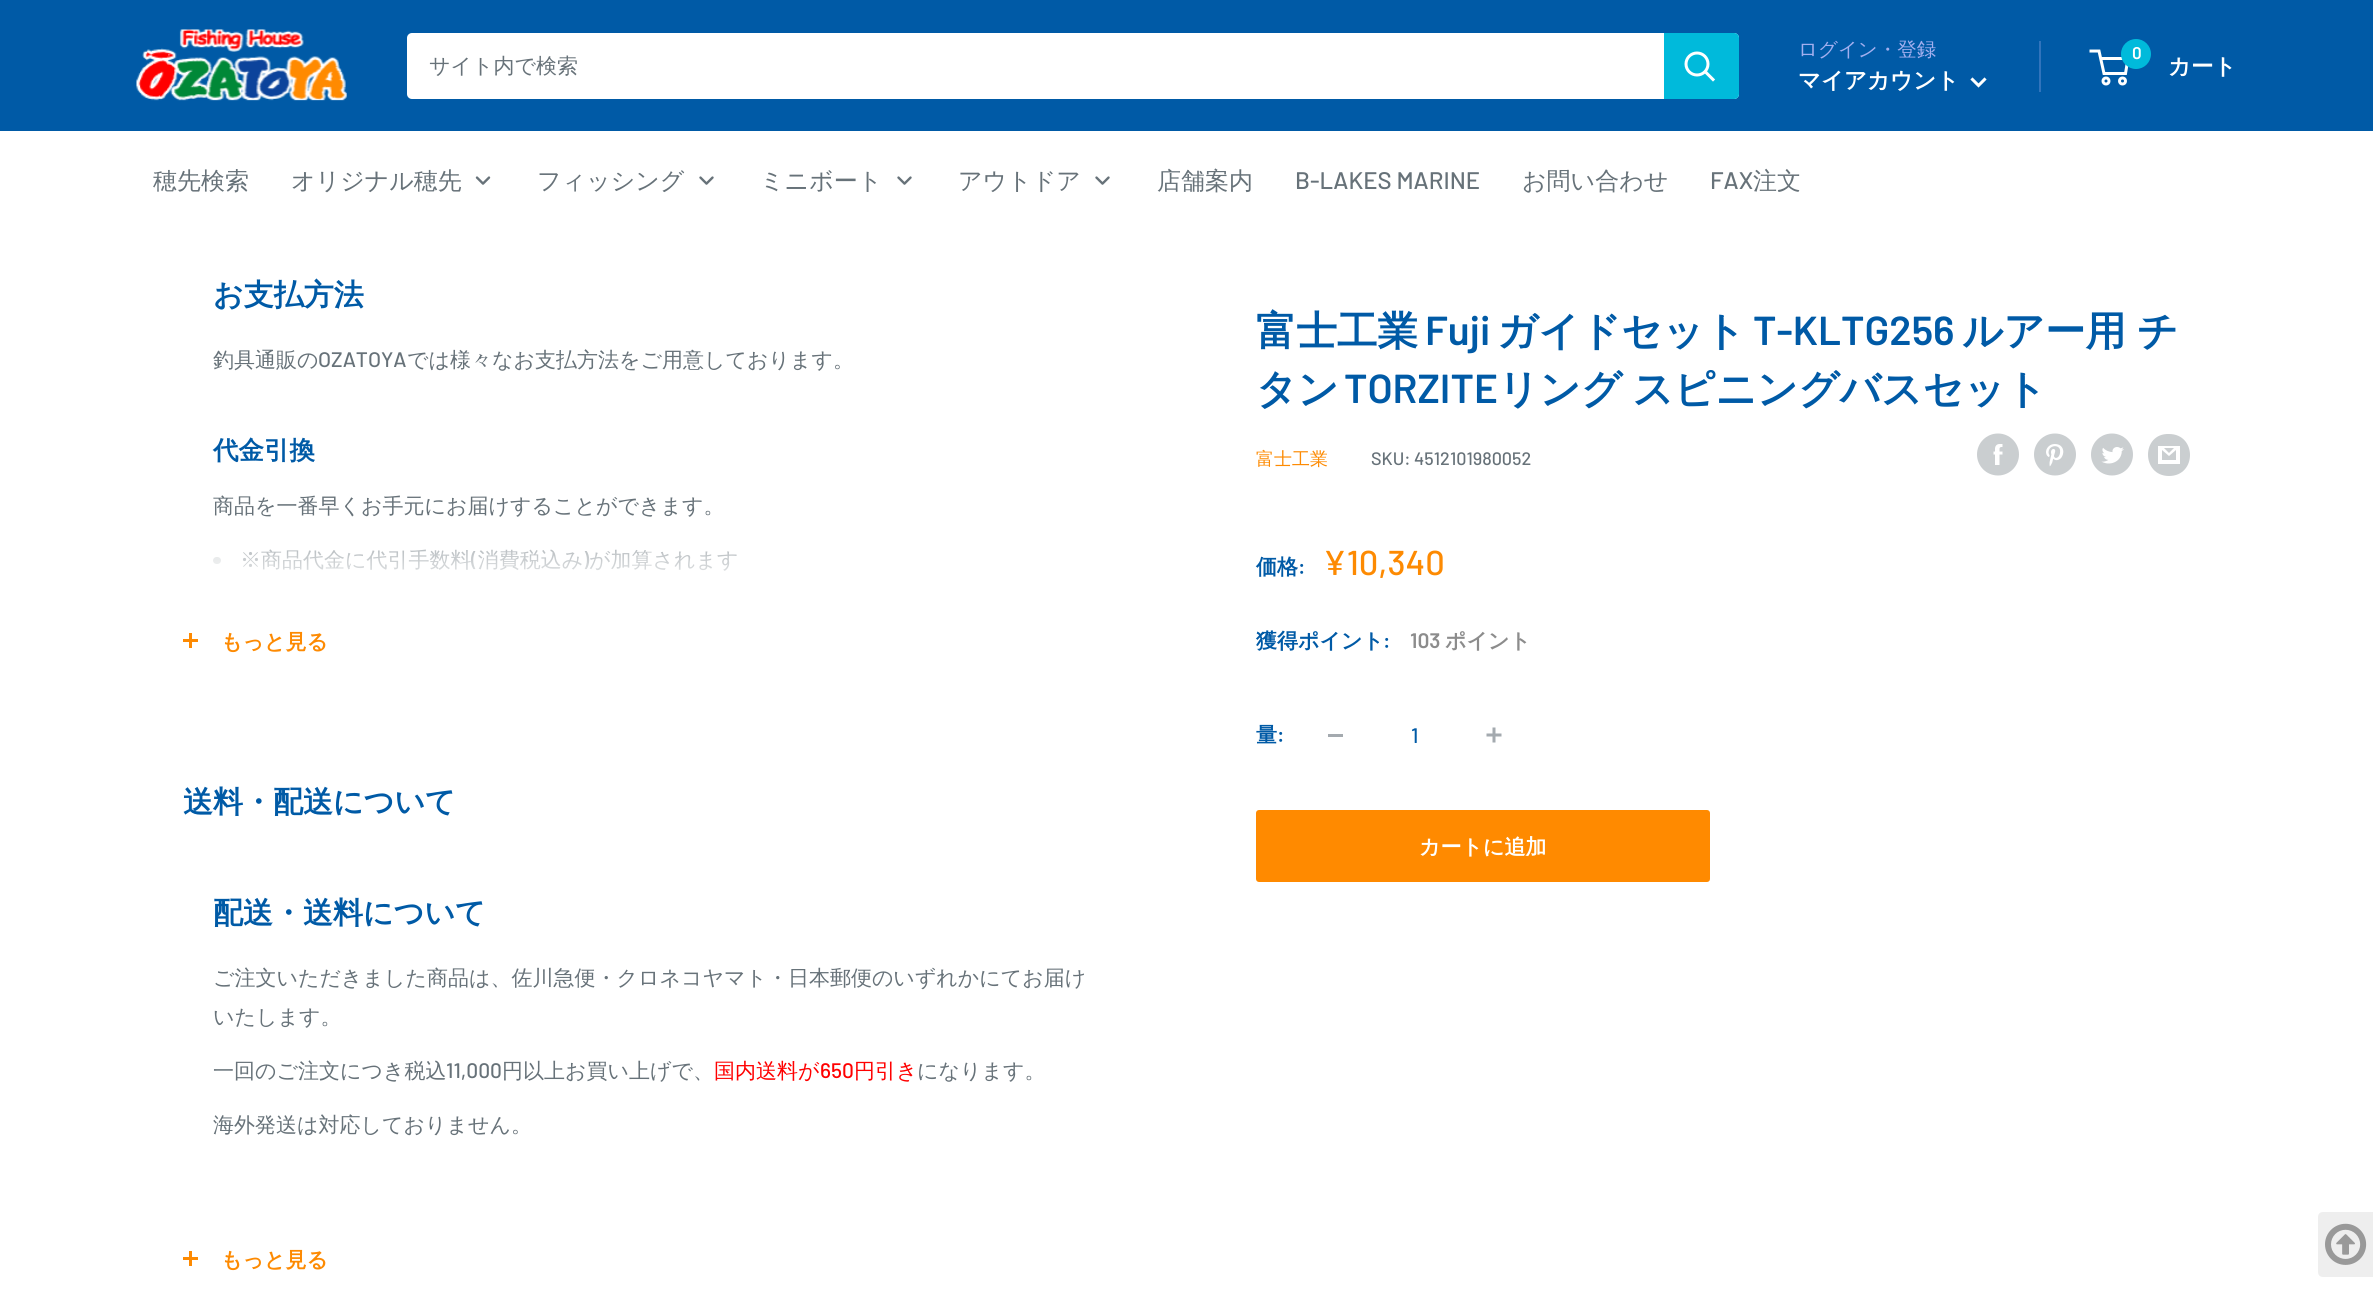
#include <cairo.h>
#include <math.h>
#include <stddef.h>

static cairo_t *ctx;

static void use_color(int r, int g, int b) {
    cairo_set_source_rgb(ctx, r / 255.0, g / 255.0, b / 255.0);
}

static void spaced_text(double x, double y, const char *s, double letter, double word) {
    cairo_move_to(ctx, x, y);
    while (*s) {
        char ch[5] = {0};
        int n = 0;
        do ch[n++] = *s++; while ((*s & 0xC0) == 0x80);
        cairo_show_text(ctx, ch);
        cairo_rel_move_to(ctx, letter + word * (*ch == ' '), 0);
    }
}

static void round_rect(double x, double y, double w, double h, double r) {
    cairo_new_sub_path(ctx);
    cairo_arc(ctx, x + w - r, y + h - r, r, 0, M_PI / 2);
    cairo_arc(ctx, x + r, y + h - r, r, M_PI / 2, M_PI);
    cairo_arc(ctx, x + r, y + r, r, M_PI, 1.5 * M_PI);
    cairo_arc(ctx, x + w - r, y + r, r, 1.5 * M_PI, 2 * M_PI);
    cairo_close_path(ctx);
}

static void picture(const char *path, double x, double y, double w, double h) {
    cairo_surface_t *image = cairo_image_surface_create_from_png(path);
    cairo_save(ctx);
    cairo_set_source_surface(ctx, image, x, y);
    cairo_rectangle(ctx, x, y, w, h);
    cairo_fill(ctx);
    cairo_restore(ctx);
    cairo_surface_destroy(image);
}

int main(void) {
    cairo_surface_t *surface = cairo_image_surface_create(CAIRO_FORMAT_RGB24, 2373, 1300);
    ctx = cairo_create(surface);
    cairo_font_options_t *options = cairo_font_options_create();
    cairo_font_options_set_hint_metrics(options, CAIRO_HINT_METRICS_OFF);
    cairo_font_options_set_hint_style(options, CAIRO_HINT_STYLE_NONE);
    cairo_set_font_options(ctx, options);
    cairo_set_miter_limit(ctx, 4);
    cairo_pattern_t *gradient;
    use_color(255, 255, 255);
    cairo_paint(ctx);
    use_color(0, 90, 166);
    cairo_rectangle(ctx, 0, 0, 2373, 131);
    cairo_fill(ctx);
    picture("img1.png", 136, 29, 211, 72);
    use_color(255, 255, 255);
    round_rect(407, 33, 1332, 66, 5);
    cairo_fill(ctx);
    cairo_select_font_face(ctx, "WenQuanYi Zen Hei Medium", CAIRO_FONT_SLANT_NORMAL, CAIRO_FONT_WEIGHT_NORMAL);
    cairo_set_font_size(ctx, 21);
    use_color(103, 114, 121);
    cairo_move_to(ctx, 429, 73);
    cairo_show_text(ctx, "サイト内で検索");
    use_color(0, 186, 219);
    cairo_new_path(ctx);
    cairo_move_to(ctx, 1664, 33);
    cairo_line_to(ctx, 1734, 33);
    cairo_curve_to(ctx, 1737, 33, 1739, 35, 1739, 38);
    cairo_line_to(ctx, 1739, 94);
    cairo_curve_to(ctx, 1739, 97, 1737, 99, 1734, 99);
    cairo_line_to(ctx, 1664, 99);
    cairo_close_path(ctx);
    cairo_fill(ctx);
    cairo_new_path(ctx);
    cairo_move_to(ctx, 1713, 79.5);
    cairo_line_to(ctx, 1705.5, 72);
    use_color(255, 255, 255);
    cairo_set_line_width(ctx, 3);
    cairo_set_line_cap(ctx, CAIRO_LINE_CAP_SQUARE);
    cairo_stroke(ctx);
    cairo_arc(ctx, 1697, 64, 11, 0, 2 * M_PI);
    cairo_set_line_cap(ctx, CAIRO_LINE_CAP_BUTT);
    cairo_stroke(ctx);
    cairo_set_font_size(ctx, 19.5);
    use_color(163, 175, 239);
    cairo_move_to(ctx, 1798, 56);
    cairo_show_text(ctx, "ログイン・登録");
    use_color(49, 116, 188);
    cairo_rectangle(ctx, 2039, 41, 2, 51);
    cairo_fill(ctx);
    cairo_select_font_face(ctx, "WenQuanYi Zen Hei", CAIRO_FONT_SLANT_NORMAL, CAIRO_FONT_WEIGHT_BOLD);
    cairo_set_font_size(ctx, 22.5);
    use_color(255, 255, 255);
    cairo_move_to(ctx, 1798, 88);
    cairo_show_text(ctx, "マイアカウント");
    cairo_new_path(ctx);
    cairo_move_to(ctx, 1984.5, 79.5);
    cairo_line_to(ctx, 1978.5, 85.5);
    cairo_line_to(ctx, 1972.5, 79.5);
    cairo_set_line_cap(ctx, CAIRO_LINE_CAP_SQUARE);
    cairo_stroke(ctx);
    cairo_arc(ctx, 2106, 81, 3, 0, 2 * M_PI);
    cairo_set_line_cap(ctx, CAIRO_LINE_CAP_BUTT);
    cairo_stroke(ctx);
    cairo_arc(ctx, 2122.5, 81, 3, 0, 2 * M_PI);
    cairo_stroke(ctx);
    cairo_new_path(ctx);
    cairo_move_to(ctx, 2100.5, 58.5);
    cairo_line_to(ctx, 2128, 58.5);
    cairo_line_to(ctx, 2125.5, 73.5);
    cairo_line_to(ctx, 2104, 73.5);
    cairo_line_to(ctx, 2099, 51);
    cairo_line_to(ctx, 2089.5, 51);
    cairo_stroke(ctx);
    use_color(0, 186, 219);
    cairo_arc(ctx, 2136, 54, 15, 0, 2 * M_PI);
    cairo_fill(ctx);
    cairo_select_font_face(ctx, "Barlow SemiBold", CAIRO_FONT_SLANT_NORMAL, CAIRO_FONT_WEIGHT_NORMAL);
    cairo_set_font_size(ctx, 17);
    use_color(255, 255, 255);
    cairo_move_to(ctx, 2132, 59);
    cairo_show_text(ctx, "0");
    cairo_select_font_face(ctx, "WenQuanYi Zen Hei", CAIRO_FONT_SLANT_NORMAL, CAIRO_FONT_WEIGHT_BOLD);
    cairo_set_font_size(ctx, 22.5);
    cairo_move_to(ctx, 2168, 74);
    cairo_show_text(ctx, "カート");
    cairo_select_font_face(ctx, "WenQuanYi Zen Hei Medium", CAIRO_FONT_SLANT_NORMAL, CAIRO_FONT_WEIGHT_NORMAL);
    cairo_set_font_size(ctx, 24);
    use_color(103, 114, 121);
    cairo_move_to(ctx, 153, 189);
    cairo_show_text(ctx, "穂先検索");
    cairo_move_to(ctx, 291, 189);
    cairo_show_text(ctx, "オリジナル穂先");
    picture("img2.png", 475, 176, 16, 9);
    cairo_move_to(ctx, 537, 189);
    cairo_show_text(ctx, "フィッシング");
    picture("img3.png", 699, 176, 15, 9);
    cairo_move_to(ctx, 760, 189);
    cairo_show_text(ctx, "ミニボート");
    picture("img3.png", 897, 176, 15, 9);
    cairo_move_to(ctx, 958, 189);
    cairo_show_text(ctx, "アウトドア");
    picture("img3.png", 1095, 176, 15, 9);
    cairo_move_to(ctx, 1157, 189);
    cairo_show_text(ctx, "店舗案内");
    cairo_select_font_face(ctx, "Barlow Medium", CAIRO_FONT_SLANT_NORMAL, CAIRO_FONT_WEIGHT_NORMAL);
    cairo_move_to(ctx, 1295, 189);
    cairo_show_text(ctx, "B-LAKES MARINE");
    cairo_select_font_face(ctx, "WenQuanYi Zen Hei Medium", CAIRO_FONT_SLANT_NORMAL, CAIRO_FONT_WEIGHT_NORMAL);
    cairo_move_to(ctx, 1522, 189);
    cairo_show_text(ctx, "お問い合わせ");
    cairo_select_font_face(ctx, "Barlow Medium", CAIRO_FONT_SLANT_NORMAL, CAIRO_FONT_WEIGHT_NORMAL);
    cairo_move_to(ctx, 1710, 189);
    cairo_show_text(ctx, "FAX");
    cairo_select_font_face(ctx, "WenQuanYi Zen Hei Medium", CAIRO_FONT_SLANT_NORMAL, CAIRO_FONT_WEIGHT_NORMAL);
    cairo_move_to(ctx, 1753, 189);
    cairo_show_text(ctx, "注文");
    cairo_select_font_face(ctx, "WenQuanYi Zen Hei", CAIRO_FONT_SLANT_NORMAL, CAIRO_FONT_WEIGHT_BOLD);
    cairo_set_font_size(ctx, 30);
    use_color(0, 90, 166);
    cairo_move_to(ctx, 213, 305);
    cairo_show_text(ctx, "お支払方法");
    cairo_select_font_face(ctx, "WenQuanYi Zen Hei Medium", CAIRO_FONT_SLANT_NORMAL, CAIRO_FONT_WEIGHT_NORMAL);
    cairo_set_font_size(ctx, 21);
    use_color(103, 114, 121);
    cairo_move_to(ctx, 213, 367);
    cairo_show_text(ctx, "釣具通販の");
    cairo_select_font_face(ctx, "Barlow Medium", CAIRO_FONT_SLANT_NORMAL, CAIRO_FONT_WEIGHT_NORMAL);
    cairo_move_to(ctx, 318, 367);
    cairo_show_text(ctx, "OZATOYA");
    cairo_select_font_face(ctx, "WenQuanYi Zen Hei Medium", CAIRO_FONT_SLANT_NORMAL, CAIRO_FONT_WEIGHT_NORMAL);
    cairo_move_to(ctx, 407, 367);
    cairo_show_text(ctx, "では様々なお支払方法をご用意しております。");
    cairo_select_font_face(ctx, "WenQuanYi Zen Hei", CAIRO_FONT_SLANT_NORMAL, CAIRO_FONT_WEIGHT_BOLD);
    cairo_set_font_size(ctx, 25.5);
    use_color(0, 90, 166);
    cairo_move_to(ctx, 213, 459);
    cairo_show_text(ctx, "代金引換");
    cairo_select_font_face(ctx, "WenQuanYi Zen Hei Medium", CAIRO_FONT_SLANT_NORMAL, CAIRO_FONT_WEIGHT_NORMAL);
    cairo_set_font_size(ctx, 21);
    use_color(103, 114, 121);
    cairo_move_to(ctx, 213, 513);
    cairo_show_text(ctx, "商品を一番早くお手元にお届けすることができます。");
    cairo_move_to(ctx, 240, 567);
    cairo_show_text(ctx, "※商品代金に代引手数料 消費税込み");
    cairo_select_font_face(ctx, "Barlow Medium", CAIRO_FONT_SLANT_NORMAL, CAIRO_FONT_WEIGHT_NORMAL);
    cairo_move_to(ctx, 583, 567);
    cairo_show_text(ctx, ")");
    cairo_select_font_face(ctx, "WenQuanYi Zen Hei Medium", CAIRO_FONT_SLANT_NORMAL, CAIRO_FONT_WEIGHT_NORMAL);
    cairo_move_to(ctx, 589, 567);
    cairo_show_text(ctx, "が加算されます");
    use_color(194, 199, 201);
    round_rect(213, 557, 8, 7, 3.5);
    cairo_fill(ctx);
    cairo_select_font_face(ctx, "Barlow Medium", CAIRO_FONT_SLANT_NORMAL, CAIRO_FONT_WEIGHT_NORMAL);
    use_color(103, 114, 121);
    cairo_move_to(ctx, 471, 567);
    cairo_show_text(ctx, "(");
    gradient = cairo_pattern_create_linear(650, 522, 650, 597);
    cairo_pattern_add_color_stop_rgba(gradient, 0, 1, 1, 1, 0);
    cairo_pattern_add_color_stop_rgba(gradient, 0.15, 1, 1, 1, 0.4);
    cairo_pattern_add_color_stop_rgba(gradient, 1, 1, 1, 1, 1);
    cairo_set_source(ctx, gradient);
    cairo_pattern_destroy(gradient);
    cairo_rectangle(ctx, 213, 549, 524, 22);
    cairo_fill(ctx);
    use_color(253, 138, 2);
    cairo_rectangle(ctx, 189, 633, 3, 15);
    cairo_fill(ctx);
    cairo_rectangle(ctx, 183, 639, 15, 3);
    cairo_fill(ctx);
    cairo_select_font_face(ctx, "WenQuanYi Zen Hei", CAIRO_FONT_SLANT_NORMAL, CAIRO_FONT_WEIGHT_BOLD);
    cairo_move_to(ctx, 221, 649);
    cairo_show_text(ctx, "もっと見る");
    cairo_set_font_size(ctx, 40.5);
    use_color(0, 90, 166);
    cairo_move_to(ctx, 1256, 345);
    cairo_show_text(ctx, "富士工業");
    cairo_select_font_face(ctx, "Barlow SemiBold", CAIRO_FONT_SLANT_NORMAL, CAIRO_FONT_WEIGHT_NORMAL);
    cairo_move_to(ctx, 1425, 345);
    cairo_show_text(ctx, "Fuji");
    cairo_select_font_face(ctx, "WenQuanYi Zen Hei", CAIRO_FONT_SLANT_NORMAL, CAIRO_FONT_WEIGHT_BOLD);
    cairo_move_to(ctx, 1497, 345);
    cairo_show_text(ctx, "ガイドセット");
    cairo_select_font_face(ctx, "Barlow SemiBold", CAIRO_FONT_SLANT_NORMAL, CAIRO_FONT_WEIGHT_NORMAL);
    cairo_move_to(ctx, 1753, 345);
    cairo_show_text(ctx, "T-KLTG256");
    cairo_select_font_face(ctx, "WenQuanYi Zen Hei", CAIRO_FONT_SLANT_NORMAL, CAIRO_FONT_WEIGHT_BOLD);
    spaced_text(1962, 345, "ルアー用 チ", 0, -1);
    cairo_move_to(ctx, 1256, 403);
    cairo_show_text(ctx, "タン");
    cairo_select_font_face(ctx, "Barlow SemiBold", CAIRO_FONT_SLANT_NORMAL, CAIRO_FONT_WEIGHT_NORMAL);
    cairo_move_to(ctx, 1344, 403);
    cairo_show_text(ctx, "TORZITE");
    cairo_select_font_face(ctx, "WenQuanYi Zen Hei", CAIRO_FONT_SLANT_NORMAL, CAIRO_FONT_WEIGHT_BOLD);
    spaced_text(1498, 403, "リング スピニングバスセット", 0, -2);
    cairo_select_font_face(ctx, "WenQuanYi Zen Hei Medium", CAIRO_FONT_SLANT_NORMAL, CAIRO_FONT_WEIGHT_NORMAL);
    cairo_set_font_size(ctx, 18);
    use_color(253, 138, 2);
    cairo_move_to(ctx, 1256, 465);
    cairo_show_text(ctx, "富士工業");
    cairo_select_font_face(ctx, "Barlow Medium", CAIRO_FONT_SLANT_NORMAL, CAIRO_FONT_WEIGHT_NORMAL);
    use_color(103, 114, 121);
    cairo_move_to(ctx, 1371, 465);
    cairo_show_text(ctx, "SKU: 4512101980052");
    picture("img4.png", 1977, 433, 42, 43);
    picture("img5.png", 2034, 433, 42, 43);
    picture("img6.png", 2091, 433, 42, 43);
    use_color(202, 206, 208);
    cairo_new_path(ctx);
    cairo_move_to(ctx, 2169, 476);
    cairo_curve_to(ctx, 2141, 476, 2141, 433, 2169, 434);
    cairo_curve_to(ctx, 2197, 434, 2197, 476, 2169, 476);
    cairo_close_path(ctx);
    cairo_move_to(ctx, 2164, 448);
    cairo_line_to(ctx, 2174, 448);
    cairo_line_to(ctx, 2169, 453);
    cairo_close_path(ctx);
    cairo_move_to(ctx, 2176, 450);
    cairo_line_to(ctx, 2176, 460);
    cairo_line_to(ctx, 2162, 460);
    cairo_line_to(ctx, 2162, 450);
    cairo_line_to(ctx, 2169, 456);
    cairo_close_path(ctx);
    cairo_move_to(ctx, 2180, 446);
    cairo_line_to(ctx, 2158, 446);
    cairo_line_to(ctx, 2158, 464);
    cairo_line_to(ctx, 2180, 464);
    cairo_close_path(ctx);
    cairo_fill(ctx);
    cairo_select_font_face(ctx, "WenQuanYi Zen Hei", CAIRO_FONT_SLANT_NORMAL, CAIRO_FONT_WEIGHT_BOLD);
    cairo_set_font_size(ctx, 21);
    use_color(0, 90, 166);
    cairo_move_to(ctx, 1256, 574);
    cairo_show_text(ctx, "価格");
    cairo_select_font_face(ctx, "Barlow SemiBold", CAIRO_FONT_SLANT_NORMAL, CAIRO_FONT_WEIGHT_NORMAL);
    cairo_move_to(ctx, 1298, 574);
    cairo_show_text(ctx, ":");
    cairo_select_font_face(ctx, "Barlow Medium", CAIRO_FONT_SLANT_NORMAL, CAIRO_FONT_WEIGHT_NORMAL);
    cairo_set_font_size(ctx, 34.5);
    use_color(253, 138, 2);
    cairo_move_to(ctx, 1323, 575);
    cairo_show_text(ctx, "¥10,340");
    cairo_select_font_face(ctx, "WenQuanYi Zen Hei", CAIRO_FONT_SLANT_NORMAL, CAIRO_FONT_WEIGHT_BOLD);
    cairo_set_font_size(ctx, 21);
    use_color(0, 90, 166);
    cairo_move_to(ctx, 1256, 648);
    cairo_show_text(ctx, "獲得ポイント");
    cairo_select_font_face(ctx, "Barlow SemiBold", CAIRO_FONT_SLANT_NORMAL, CAIRO_FONT_WEIGHT_NORMAL);
    cairo_move_to(ctx, 1383, 648);
    cairo_show_text(ctx, ":");
    use_color(140, 140, 140);
    cairo_move_to(ctx, 1410, 648);
    cairo_show_text(ctx, "103");
    cairo_select_font_face(ctx, "WenQuanYi Zen Hei", CAIRO_FONT_SLANT_NORMAL, CAIRO_FONT_WEIGHT_BOLD);
    cairo_move_to(ctx, 1445, 648);
    cairo_show_text(ctx, "ポイント");
    use_color(0, 90, 166);
    cairo_move_to(ctx, 1256, 742);
    cairo_show_text(ctx, "量");
    cairo_select_font_face(ctx, "Barlow SemiBold", CAIRO_FONT_SLANT_NORMAL, CAIRO_FONT_WEIGHT_NORMAL);
    cairo_move_to(ctx, 1277, 742);
    cairo_show_text(ctx, ":");
    use_color(164, 170, 175);
    cairo_rectangle(ctx, 1328, 734, 15, 3);
    cairo_fill(ctx);
    cairo_select_font_face(ctx, "Barlow Medium", CAIRO_FONT_SLANT_NORMAL, CAIRO_FONT_WEIGHT_NORMAL);
    use_color(0, 90, 166);
    cairo_move_to(ctx, 1411, 743);
    cairo_show_text(ctx, "1");
    picture("img7.png", 1486, 727, 16, 16);
    use_color(255, 138, 0);
    round_rect(1256, 810, 454, 72, 3);
    cairo_fill(ctx);
    cairo_select_font_face(ctx, "WenQuanYi Zen Hei", CAIRO_FONT_SLANT_NORMAL, CAIRO_FONT_WEIGHT_BOLD);
    use_color(255, 255, 255);
    cairo_move_to(ctx, 1419, 854);
    cairo_show_text(ctx, "カートに追加");
    cairo_set_font_size(ctx, 30);
    use_color(0, 90, 166);
    cairo_move_to(ctx, 183, 812);
    cairo_show_text(ctx, "送料・配送について");
    cairo_move_to(ctx, 213, 923);
    cairo_show_text(ctx, "配送・送料について");
    cairo_select_font_face(ctx, "WenQuanYi Zen Hei Medium", CAIRO_FONT_SLANT_NORMAL, CAIRO_FONT_WEIGHT_NORMAL);
    cairo_set_font_size(ctx, 21);
    use_color(103, 114, 121);
    cairo_move_to(ctx, 213, 985);
    cairo_show_text(ctx, "ご注文いただきました商品は、佐川急便・クロネコヤマト・日本郵便のいずれかにてお届け");
    cairo_move_to(ctx, 213, 1024);
    cairo_show_text(ctx, "いたします。");
    cairo_move_to(ctx, 213, 1078);
    cairo_show_text(ctx, "一回のご注文につき税込");
    cairo_select_font_face(ctx, "Barlow Medium", CAIRO_FONT_SLANT_NORMAL, CAIRO_FONT_WEIGHT_NORMAL);
    cairo_move_to(ctx, 446, 1078);
    cairo_show_text(ctx, "11,000");
    cairo_select_font_face(ctx, "WenQuanYi Zen Hei Medium", CAIRO_FONT_SLANT_NORMAL, CAIRO_FONT_WEIGHT_NORMAL);
    cairo_move_to(ctx, 502, 1078);
    cairo_show_text(ctx, "円以上お買い上げで、");
    use_color(255, 0, 0);
    cairo_move_to(ctx, 714, 1078);
    cairo_show_text(ctx, "国内送料が");
    cairo_select_font_face(ctx, "Barlow Medium", CAIRO_FONT_SLANT_NORMAL, CAIRO_FONT_WEIGHT_NORMAL);
    cairo_move_to(ctx, 820, 1078);
    cairo_show_text(ctx, "650");
    cairo_select_font_face(ctx, "WenQuanYi Zen Hei Medium", CAIRO_FONT_SLANT_NORMAL, CAIRO_FONT_WEIGHT_NORMAL);
    cairo_move_to(ctx, 854, 1078);
    cairo_show_text(ctx, "円引き");
    use_color(103, 114, 121);
    cairo_move_to(ctx, 917, 1078);
    cairo_show_text(ctx, "になります。");
    cairo_move_to(ctx, 213, 1132);
    cairo_show_text(ctx, "海外発送は対応しておりません。");
    use_color(253, 138, 2);
    cairo_rectangle(ctx, 189, 1251, 3, 15);
    cairo_fill(ctx);
    cairo_rectangle(ctx, 183, 1257, 15, 3);
    cairo_fill(ctx);
    cairo_select_font_face(ctx, "WenQuanYi Zen Hei", CAIRO_FONT_SLANT_NORMAL, CAIRO_FONT_WEIGHT_BOLD);
    cairo_move_to(ctx, 221, 1267);
    cairo_show_text(ctx, "もっと見る");
    use_color(238, 238, 238);
    cairo_new_path(ctx);
    cairo_move_to(ctx, 2323, 1212);
    cairo_line_to(ctx, 2373, 1212);
    cairo_line_to(ctx, 2373, 1277);
    cairo_line_to(ctx, 2323, 1277);
    cairo_curve_to(ctx, 2320, 1277, 2318, 1275, 2318, 1272);
    cairo_line_to(ctx, 2318, 1217);
    cairo_curve_to(ctx, 2318, 1214, 2320, 1212, 2323, 1212);
    cairo_close_path(ctx);
    cairo_fill(ctx);
    picture("img8.png", 2325, 1223, 42, 42);
    cairo_surface_write_to_png(surface, "result.png");
    cairo_font_options_destroy(options);
    cairo_destroy(ctx);
    cairo_surface_destroy(surface);
    return 0;
}
